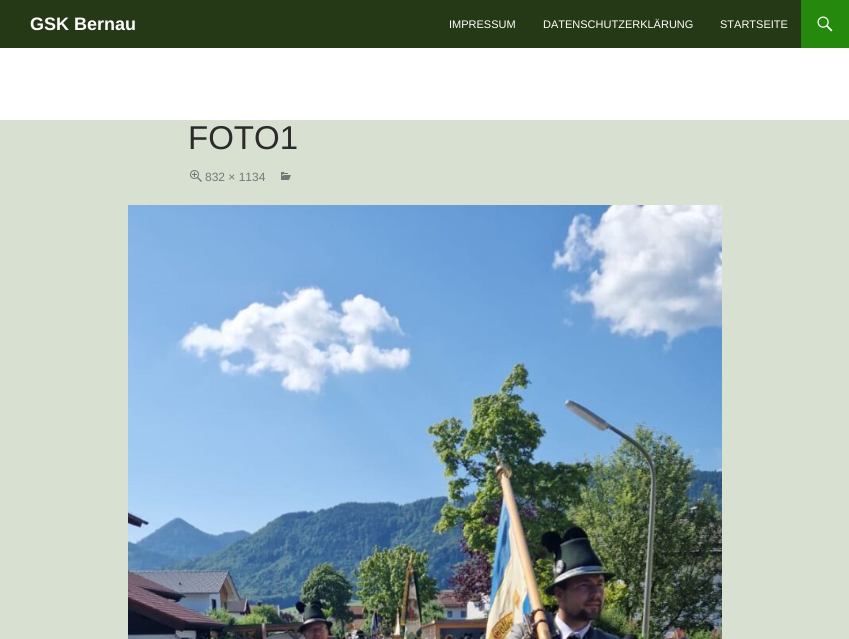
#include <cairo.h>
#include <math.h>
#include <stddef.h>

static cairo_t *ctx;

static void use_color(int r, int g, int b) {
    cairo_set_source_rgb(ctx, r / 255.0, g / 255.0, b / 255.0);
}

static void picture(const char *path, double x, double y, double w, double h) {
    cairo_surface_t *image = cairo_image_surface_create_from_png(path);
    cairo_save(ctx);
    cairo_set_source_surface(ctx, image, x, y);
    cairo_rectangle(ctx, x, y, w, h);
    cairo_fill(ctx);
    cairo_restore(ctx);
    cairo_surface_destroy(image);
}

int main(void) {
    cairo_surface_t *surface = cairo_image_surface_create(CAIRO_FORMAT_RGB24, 849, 639);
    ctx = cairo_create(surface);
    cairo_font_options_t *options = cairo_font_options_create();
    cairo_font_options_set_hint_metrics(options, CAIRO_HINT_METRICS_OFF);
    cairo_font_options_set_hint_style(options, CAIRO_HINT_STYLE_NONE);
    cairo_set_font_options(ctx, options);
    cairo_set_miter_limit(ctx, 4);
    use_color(255, 255, 255);
    cairo_paint(ctx);
    use_color(37, 57, 22);
    cairo_rectangle(ctx, 0, 0, 801, 48);
    cairo_fill(ctx);
    cairo_select_font_face(ctx, "Liberation Sans", CAIRO_FONT_SLANT_NORMAL, CAIRO_FONT_WEIGHT_BOLD);
    cairo_set_font_size(ctx, 18);
    use_color(255, 255, 255);
    cairo_move_to(ctx, 30, 30);
    cairo_show_text(ctx, "GSK Bernau");
    cairo_select_font_face(ctx, "Liberation Sans", CAIRO_FONT_SLANT_NORMAL, CAIRO_FONT_WEIGHT_NORMAL);
    cairo_set_font_size(ctx, 11);
    cairo_move_to(ctx, 449, 28);
    cairo_show_text(ctx, "IMPRESSUM");
    cairo_move_to(ctx, 543, 28);
    cairo_show_text(ctx, "DATENSCHUTZERKLÄRUNG");
    cairo_move_to(ctx, 720, 28);
    cairo_show_text(ctx, "STARTSEITE");
    use_color(36, 137, 13);
    cairo_rectangle(ctx, 801, 0, 48, 48);
    cairo_fill(ctx);
    picture("img1.png", 817, 16, 16, 16);
    use_color(216, 224, 209);
    cairo_rectangle(ctx, 0, 120, 849, 519);
    cairo_fill(ctx);
    cairo_set_font_size(ctx, 33);
    use_color(43, 43, 43);
    cairo_move_to(ctx, 188, 149);
    cairo_show_text(ctx, "FOTO1");
    picture("img2.png", 190, 170, 12, 12);
    cairo_set_font_size(ctx, 12);
    use_color(118, 118, 118);
    cairo_move_to(ctx, 205, 181);
    cairo_show_text(ctx, "832 × 1134");
    picture("img3.png", 281, 172, 10, 8);
    picture("img4.png", 128, 205, 594, 434);
    cairo_surface_write_to_png(surface, "result.png");
    cairo_font_options_destroy(options);
    cairo_destroy(ctx);
    cairo_surface_destroy(surface);
    return 0;
}
